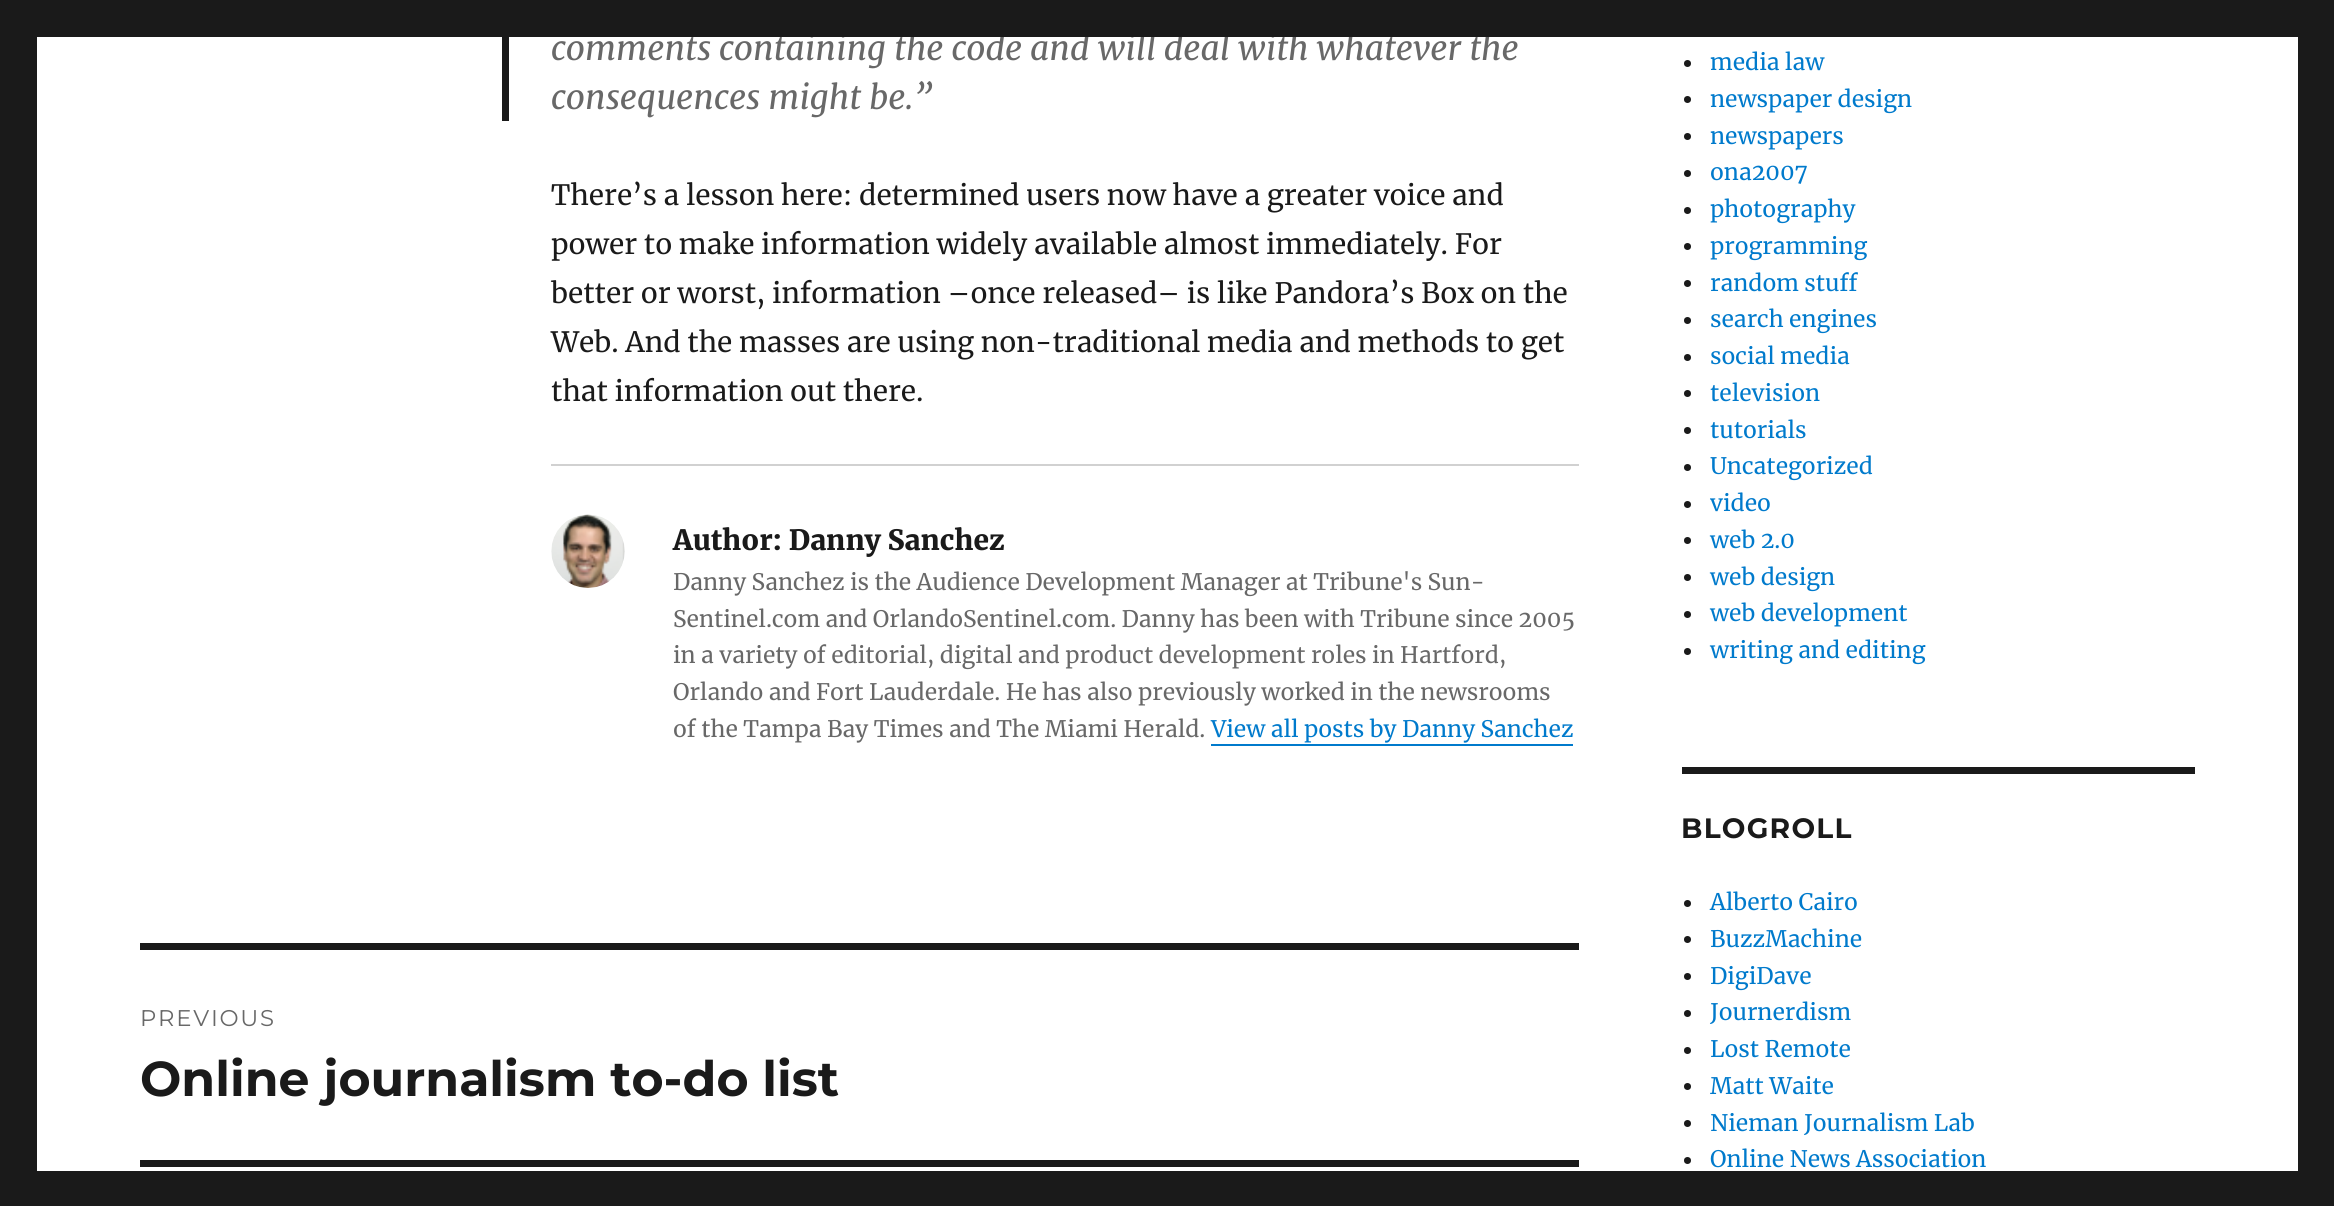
#include <cairo.h>
#include <math.h>
#include <stddef.h>

static cairo_t *ctx;

static void use_color(int r, int g, int b) {
    cairo_set_source_rgb(ctx, r / 255.0, g / 255.0, b / 255.0);
}

static void spaced_text(double x, double y, const char *s, double letter, double word) {
    cairo_move_to(ctx, x, y);
    while (*s) {
        char ch[5] = {0};
        int n = 0;
        do ch[n++] = *s++; while ((*s & 0xC0) == 0x80);
        cairo_show_text(ctx, ch);
        cairo_rel_move_to(ctx, letter + word * (*ch == ' '), 0);
    }
}

static void picture(const char *path, double x, double y, double w, double h) {
    cairo_surface_t *image = cairo_image_surface_create_from_png(path);
    cairo_save(ctx);
    cairo_set_source_surface(ctx, image, x, y);
    cairo_rectangle(ctx, x, y, w, h);
    cairo_fill(ctx);
    cairo_restore(ctx);
    cairo_surface_destroy(image);
}

int main(void) {
    cairo_surface_t *surface = cairo_image_surface_create(CAIRO_FORMAT_RGB24, 2334, 1206);
    ctx = cairo_create(surface);
    cairo_font_options_t *options = cairo_font_options_create();
    cairo_font_options_set_hint_metrics(options, CAIRO_HINT_METRICS_OFF);
    cairo_font_options_set_hint_style(options, CAIRO_HINT_STYLE_NONE);
    cairo_set_font_options(ctx, options);
    cairo_set_miter_limit(ctx, 4);
    use_color(26, 26, 26);
    cairo_paint(ctx);
    use_color(255, 255, 255);
    cairo_rectangle(ctx, 37, 37, 2261, 1134);
    cairo_fill(ctx);
    use_color(26, 26, 26);
    cairo_rectangle(ctx, 502, 37, 7, 84);
    cairo_fill(ctx);
    cairo_select_font_face(ctx, "Merriweather", CAIRO_FONT_SLANT_ITALIC, CAIRO_FONT_WEIGHT_NORMAL);
    cairo_set_font_size(ctx, 33.25);
    use_color(104, 104, 104);
    cairo_move_to(ctx, 551, 60);
    cairo_show_text(ctx, "comments containing the code and will deal with whatever the");
    cairo_move_to(ctx, 551, 109);
    cairo_show_text(ctx, "consequences might be.”");
    cairo_select_font_face(ctx, "Merriweather", CAIRO_FONT_SLANT_NORMAL, CAIRO_FONT_WEIGHT_NORMAL);
    cairo_set_font_size(ctx, 28);
    use_color(26, 26, 26);
    cairo_move_to(ctx, 551, 205);
    cairo_show_text(ctx, "There’s a lesson here: determined users now have a greater voice and");
    cairo_move_to(ctx, 551, 254);
    cairo_show_text(ctx, "power to make information widely available almost immediately. For");
    cairo_move_to(ctx, 551, 303);
    cairo_show_text(ctx, "better or worst, information –once released– is like Pandora’s Box on the");
    cairo_move_to(ctx, 551, 352);
    cairo_show_text(ctx, "Web. And the masses are using non-traditional media and methods to get");
    cairo_move_to(ctx, 551, 401);
    cairo_show_text(ctx, "that information out there.");
    use_color(209, 209, 209);
    cairo_rectangle(ctx, 551, 464, 1028, 2);
    cairo_fill(ctx);
    picture("img1.png", 551, 514, 74, 74);
    cairo_select_font_face(ctx, "Merriweather Black", CAIRO_FONT_SLANT_NORMAL, CAIRO_FONT_WEIGHT_NORMAL);
    use_color(26, 26, 26);
    cairo_move_to(ctx, 673, 550);
    cairo_show_text(ctx, "Author: Danny Sanchez");
    cairo_select_font_face(ctx, "Merriweather", CAIRO_FONT_SLANT_NORMAL, CAIRO_FONT_WEIGHT_NORMAL);
    cairo_set_font_size(ctx, 22.75);
    use_color(104, 104, 104);
    cairo_move_to(ctx, 673, 590);
    cairo_show_text(ctx, "Danny Sanchez is the Audience Development Manager at Tribune's Sun-");
    cairo_move_to(ctx, 673, 627);
    cairo_show_text(ctx, "Sentinel.com and OrlandoSentinel.com. Danny has been with Tribune since 2005");
    cairo_move_to(ctx, 673, 663);
    cairo_show_text(ctx, "in a variety of editorial, digital and product development roles in Hartford,");
    cairo_move_to(ctx, 673, 700);
    cairo_show_text(ctx, "Orlando and Fort Lauderdale. He has also previously worked in the newsrooms");
    cairo_move_to(ctx, 673, 737);
    cairo_show_text(ctx, "of the Tampa Bay Times and The Miami Herald.");
    use_color(0, 122, 204);
    cairo_move_to(ctx, 1211, 737);
    cairo_show_text(ctx, "View all posts by Danny Sanchez");
    cairo_rectangle(ctx, 1211, 744, 362, 2);
    cairo_fill(ctx);
    use_color(26, 26, 26);
    cairo_rectangle(ctx, 140, 943, 1439, 7);
    cairo_fill(ctx);
    cairo_select_font_face(ctx, "Montserrat Thin", CAIRO_FONT_SLANT_NORMAL, CAIRO_FONT_WEIGHT_NORMAL);
    use_color(104, 104, 104);
    spaced_text(140, 1026, "PREVIOUS", 1.75, 0);
    cairo_select_font_face(ctx, "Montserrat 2 Thin", CAIRO_FONT_SLANT_NORMAL, CAIRO_FONT_WEIGHT_NORMAL);
    cairo_set_font_size(ctx, 49);
    use_color(26, 26, 26);
    cairo_move_to(ctx, 140, 1096);
    cairo_show_text(ctx, "Online journalism to-do list");
    cairo_rectangle(ctx, 140, 1160, 1439, 7);
    cairo_fill(ctx);
    cairo_arc(ctx, 1687.5, 63.5, 3.5, 0, 2 * M_PI);
    cairo_fill(ctx);
    cairo_select_font_face(ctx, "Merriweather", CAIRO_FONT_SLANT_NORMAL, CAIRO_FONT_WEIGHT_NORMAL);
    cairo_set_font_size(ctx, 22.75);
    use_color(0, 122, 204);
    cairo_move_to(ctx, 1710, 70);
    cairo_show_text(ctx, "media law");
    use_color(26, 26, 26);
    cairo_new_path(ctx);
    cairo_arc(ctx, 1687.5, 99.5, 3.5, 0, 2 * M_PI);
    cairo_fill(ctx);
    use_color(0, 122, 204);
    cairo_move_to(ctx, 1710, 107);
    cairo_show_text(ctx, "newspaper design");
    use_color(26, 26, 26);
    cairo_new_path(ctx);
    cairo_arc(ctx, 1687.5, 136.5, 3.5, 0, 2 * M_PI);
    cairo_fill(ctx);
    use_color(0, 122, 204);
    cairo_move_to(ctx, 1710, 144);
    cairo_show_text(ctx, "newspapers");
    use_color(26, 26, 26);
    cairo_new_path(ctx);
    cairo_arc(ctx, 1687.5, 173.5, 3.5, 0, 2 * M_PI);
    cairo_fill(ctx);
    use_color(0, 122, 204);
    cairo_move_to(ctx, 1710, 180);
    cairo_show_text(ctx, "ona2007");
    use_color(26, 26, 26);
    cairo_new_path(ctx);
    cairo_arc(ctx, 1687.5, 210.5, 3.5, 0, 2 * M_PI);
    cairo_fill(ctx);
    use_color(0, 122, 204);
    cairo_move_to(ctx, 1710, 217);
    cairo_show_text(ctx, "photography");
    use_color(26, 26, 26);
    cairo_new_path(ctx);
    cairo_arc(ctx, 1687.5, 246.5, 3.5, 0, 2 * M_PI);
    cairo_fill(ctx);
    use_color(0, 122, 204);
    cairo_move_to(ctx, 1710, 254);
    cairo_show_text(ctx, "programming");
    use_color(26, 26, 26);
    cairo_new_path(ctx);
    cairo_arc(ctx, 1687.5, 283.5, 3.5, 0, 2 * M_PI);
    cairo_fill(ctx);
    use_color(0, 122, 204);
    cairo_move_to(ctx, 1710, 291);
    cairo_show_text(ctx, "random stuff");
    use_color(26, 26, 26);
    cairo_new_path(ctx);
    cairo_arc(ctx, 1687.5, 320.5, 3.5, 0, 2 * M_PI);
    cairo_fill(ctx);
    use_color(0, 122, 204);
    cairo_move_to(ctx, 1710, 327);
    cairo_show_text(ctx, "search engines");
    use_color(26, 26, 26);
    cairo_new_path(ctx);
    cairo_arc(ctx, 1687.5, 357.5, 3.5, 0, 2 * M_PI);
    cairo_fill(ctx);
    use_color(0, 122, 204);
    cairo_move_to(ctx, 1710, 364);
    cairo_show_text(ctx, "social media");
    use_color(26, 26, 26);
    cairo_new_path(ctx);
    cairo_arc(ctx, 1687.5, 393.5, 3.5, 0, 2 * M_PI);
    cairo_fill(ctx);
    use_color(0, 122, 204);
    cairo_move_to(ctx, 1710, 401);
    cairo_show_text(ctx, "television");
    use_color(26, 26, 26);
    cairo_new_path(ctx);
    cairo_arc(ctx, 1687.5, 430.5, 3.5, 0, 2 * M_PI);
    cairo_fill(ctx);
    use_color(0, 122, 204);
    cairo_move_to(ctx, 1710, 438);
    cairo_show_text(ctx, "tutorials");
    use_color(26, 26, 26);
    cairo_new_path(ctx);
    cairo_arc(ctx, 1687.5, 467.5, 3.5, 0, 2 * M_PI);
    cairo_fill(ctx);
    use_color(0, 122, 204);
    cairo_move_to(ctx, 1710, 474);
    cairo_show_text(ctx, "Uncategorized");
    use_color(26, 26, 26);
    cairo_new_path(ctx);
    cairo_arc(ctx, 1687.5, 504.5, 3.5, 0, 2 * M_PI);
    cairo_fill(ctx);
    use_color(0, 122, 204);
    cairo_move_to(ctx, 1710, 511);
    cairo_show_text(ctx, "video");
    use_color(26, 26, 26);
    cairo_new_path(ctx);
    cairo_arc(ctx, 1687.5, 540.5, 3.5, 0, 2 * M_PI);
    cairo_fill(ctx);
    use_color(0, 122, 204);
    cairo_move_to(ctx, 1710, 548);
    cairo_show_text(ctx, "web 2.0");
    use_color(26, 26, 26);
    cairo_new_path(ctx);
    cairo_arc(ctx, 1687.5, 577.5, 3.5, 0, 2 * M_PI);
    cairo_fill(ctx);
    use_color(0, 122, 204);
    cairo_move_to(ctx, 1710, 585);
    cairo_show_text(ctx, "web design");
    use_color(26, 26, 26);
    cairo_new_path(ctx);
    cairo_arc(ctx, 1687.5, 614.5, 3.5, 0, 2 * M_PI);
    cairo_fill(ctx);
    use_color(0, 122, 204);
    cairo_move_to(ctx, 1710, 621);
    cairo_show_text(ctx, "web development");
    use_color(26, 26, 26);
    cairo_new_path(ctx);
    cairo_arc(ctx, 1687.5, 651.5, 3.5, 0, 2 * M_PI);
    cairo_fill(ctx);
    use_color(0, 122, 204);
    cairo_move_to(ctx, 1710, 658);
    cairo_show_text(ctx, "writing and editing");
    use_color(26, 26, 26);
    cairo_rectangle(ctx, 1682, 767, 513, 7);
    cairo_fill(ctx);
    cairo_select_font_face(ctx, "Montserrat 2 Thin", CAIRO_FONT_SLANT_NORMAL, CAIRO_FONT_WEIGHT_NORMAL);
    cairo_set_font_size(ctx, 28);
    spaced_text(1681, 838, "BLOGROLL", 1.25, 0);
    cairo_new_path(ctx);
    cairo_arc(ctx, 1687.5, 903.5, 3.5, 0, 2 * M_PI);
    cairo_fill(ctx);
    cairo_select_font_face(ctx, "Merriweather", CAIRO_FONT_SLANT_NORMAL, CAIRO_FONT_WEIGHT_NORMAL);
    cairo_set_font_size(ctx, 22.75);
    use_color(0, 122, 204);
    cairo_move_to(ctx, 1710, 910);
    cairo_show_text(ctx, "Alberto Cairo");
    use_color(26, 26, 26);
    cairo_new_path(ctx);
    cairo_arc(ctx, 1687.5, 939.5, 3.5, 0, 2 * M_PI);
    cairo_fill(ctx);
    use_color(0, 122, 204);
    cairo_move_to(ctx, 1710, 947);
    cairo_show_text(ctx, "BuzzMachine");
    use_color(26, 26, 26);
    cairo_new_path(ctx);
    cairo_arc(ctx, 1687.5, 976.5, 3.5, 0, 2 * M_PI);
    cairo_fill(ctx);
    use_color(0, 122, 204);
    cairo_move_to(ctx, 1710, 984);
    cairo_show_text(ctx, "DigiDave");
    use_color(26, 26, 26);
    cairo_new_path(ctx);
    cairo_arc(ctx, 1687.5, 1013.5, 3.5, 0, 2 * M_PI);
    cairo_fill(ctx);
    use_color(0, 122, 204);
    cairo_move_to(ctx, 1710, 1020);
    cairo_show_text(ctx, "Journerdism");
    use_color(26, 26, 26);
    cairo_new_path(ctx);
    cairo_arc(ctx, 1687.5, 1050.5, 3.5, 0, 2 * M_PI);
    cairo_fill(ctx);
    use_color(0, 122, 204);
    cairo_move_to(ctx, 1710, 1057);
    cairo_show_text(ctx, "Lost Remote");
    use_color(26, 26, 26);
    cairo_new_path(ctx);
    cairo_arc(ctx, 1687.5, 1086.5, 3.5, 0, 2 * M_PI);
    cairo_fill(ctx);
    use_color(0, 122, 204);
    cairo_move_to(ctx, 1710, 1094);
    cairo_show_text(ctx, "Matt Waite");
    use_color(26, 26, 26);
    cairo_new_path(ctx);
    cairo_arc(ctx, 1687.5, 1123.5, 3.5, 0, 2 * M_PI);
    cairo_fill(ctx);
    use_color(0, 122, 204);
    cairo_move_to(ctx, 1710, 1131);
    cairo_show_text(ctx, "Nieman Journalism Lab");
    use_color(26, 26, 26);
    cairo_new_path(ctx);
    cairo_arc(ctx, 1687.5, 1160.5, 3.5, 0, 2 * M_PI);
    cairo_fill(ctx);
    use_color(0, 122, 204);
    cairo_move_to(ctx, 1710, 1167);
    cairo_show_text(ctx, "Online News Association");
    use_color(26, 26, 26);
    cairo_rectangle(ctx, 809, 33, 681, 4);
    cairo_fill(ctx);
    cairo_surface_write_to_png(surface, "result.png");
    cairo_font_options_destroy(options);
    cairo_destroy(ctx);
    cairo_surface_destroy(surface);
    return 0;
}
